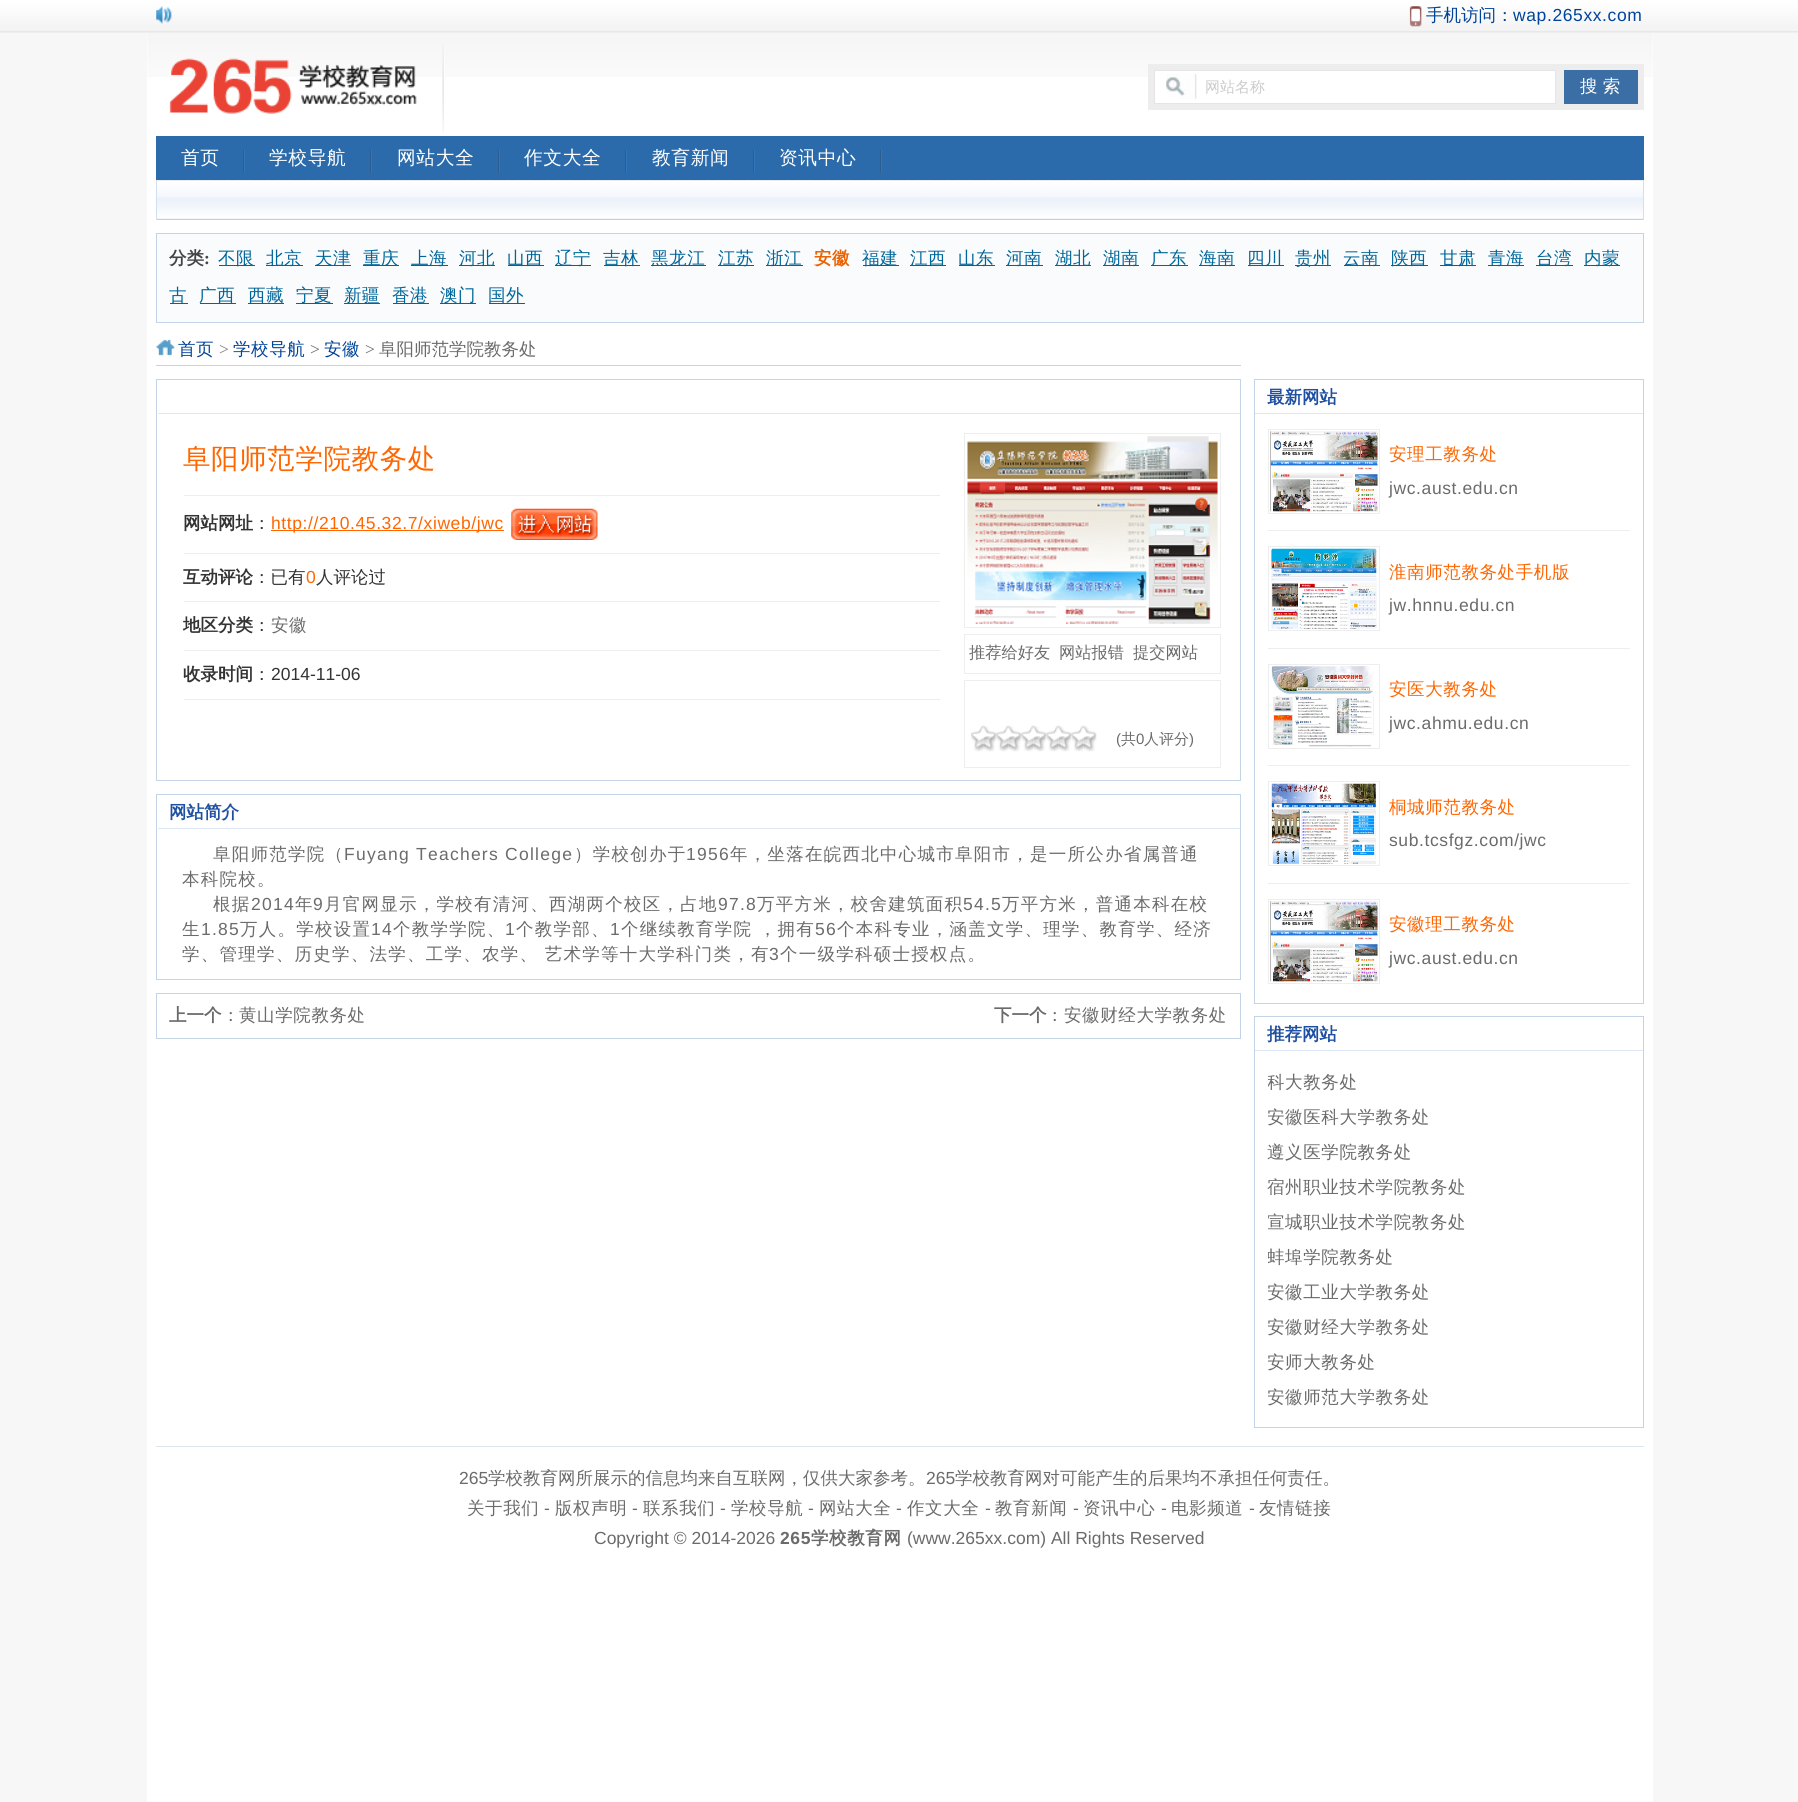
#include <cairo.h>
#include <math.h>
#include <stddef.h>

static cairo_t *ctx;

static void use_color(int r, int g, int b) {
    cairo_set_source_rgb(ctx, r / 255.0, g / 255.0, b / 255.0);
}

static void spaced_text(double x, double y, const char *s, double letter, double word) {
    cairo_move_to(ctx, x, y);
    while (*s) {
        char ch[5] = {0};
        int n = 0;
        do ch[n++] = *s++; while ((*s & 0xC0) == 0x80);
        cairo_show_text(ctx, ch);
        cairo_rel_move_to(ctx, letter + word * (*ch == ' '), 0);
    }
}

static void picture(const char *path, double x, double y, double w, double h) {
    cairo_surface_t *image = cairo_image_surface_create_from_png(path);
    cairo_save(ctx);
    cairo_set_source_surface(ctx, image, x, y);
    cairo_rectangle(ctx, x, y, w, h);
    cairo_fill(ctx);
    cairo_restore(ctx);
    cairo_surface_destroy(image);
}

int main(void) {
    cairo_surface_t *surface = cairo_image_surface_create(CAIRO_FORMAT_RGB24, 1798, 1802);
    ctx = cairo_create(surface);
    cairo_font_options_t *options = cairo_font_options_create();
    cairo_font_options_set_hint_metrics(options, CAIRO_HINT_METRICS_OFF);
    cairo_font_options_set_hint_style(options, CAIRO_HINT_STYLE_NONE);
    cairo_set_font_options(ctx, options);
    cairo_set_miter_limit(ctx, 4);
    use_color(247, 247, 247);
    cairo_paint(ctx);
    use_color(255, 255, 255);
    cairo_rectangle(ctx, 147, 33, 1506, 1769);
    cairo_fill(ctx);
    use_color(238, 238, 238);
    cairo_rectangle(ctx, 0, 32, 1798, 1);
    cairo_fill(ctx);
    picture("img1.png", 0, 0, 1798, 32);
    picture("img2.png", 156, 6, 16, 18);
    picture("img3.png", 1409, 6, 13, 21);
    cairo_select_font_face(ctx, "WenQuanYi Zen Hei Medium", CAIRO_FONT_SLANT_NORMAL, CAIRO_FONT_WEIGHT_NORMAL);
    cairo_set_font_size(ctx, 17.5);
    use_color(0, 68, 153);
    cairo_move_to(ctx, 1426, 21);
    cairo_show_text(ctx, "手机访问：");
    cairo_select_font_face(ctx, "Liberation Sans", CAIRO_FONT_SLANT_NORMAL, CAIRO_FONT_WEIGHT_NORMAL);
    spaced_text(1513, 21, "wap.265xx.com", 0.6, 0);
    picture("img4.png", 147, 33, 1506, 44);
    picture("img5.png", 442, 45, 3, 88);
    picture("img6.png", 169, 58, 248, 56);
    use_color(237, 237, 237);
    cairo_rectangle(ctx, 1148, 64, 496, 46);
    cairo_fill(ctx);
    use_color(255, 255, 255);
    cairo_rectangle(ctx, 1155, 71, 400, 32);
    cairo_fill(ctx);
    picture("img7.png", 1166, 73, 31, 26);
    cairo_rectangle(ctx, 1154.5, 70.5, 401, 33);
    use_color(229, 229, 231);
    cairo_set_line_width(ctx, 1);
    cairo_stroke(ctx);
    cairo_select_font_face(ctx, "WenQuanYi Zen Hei Medium", CAIRO_FONT_SLANT_NORMAL, CAIRO_FONT_WEIGHT_NORMAL);
    cairo_set_font_size(ctx, 15);
    use_color(204, 204, 204);
    cairo_move_to(ctx, 1205, 92);
    cairo_show_text(ctx, "网站名称");
    use_color(58, 110, 165);
    cairo_rectangle(ctx, 1564, 70, 74, 34);
    cairo_fill(ctx);
    cairo_set_font_size(ctx, 17.5);
    use_color(255, 255, 255);
    cairo_move_to(ctx, 1580, 92);
    cairo_show_text(ctx, "搜 索");
    use_color(43, 107, 171);
    cairo_rectangle(ctx, 156, 136, 1488, 44);
    cairo_fill(ctx);
    cairo_set_font_size(ctx, 18.75);
    use_color(255, 255, 255);
    spaced_text(181, 164, "首页", 0.6, 0);
    use_color(48, 118, 187);
    cairo_rectangle(ctx, 244, 150, 1, 23);
    cairo_fill(ctx);
    use_color(44, 93, 143);
    cairo_rectangle(ctx, 243, 150, 1, 23);
    cairo_fill(ctx);
    use_color(255, 255, 255);
    spaced_text(269, 164, "学校导航", 0.6, 0);
    use_color(48, 118, 187);
    cairo_rectangle(ctx, 371, 150, 1, 23);
    cairo_fill(ctx);
    use_color(44, 93, 143);
    cairo_rectangle(ctx, 370, 150, 1, 23);
    cairo_fill(ctx);
    use_color(255, 255, 255);
    spaced_text(397, 164, "网站大全", 0.6, 0);
    use_color(48, 118, 187);
    cairo_rectangle(ctx, 499, 150, 1, 23);
    cairo_fill(ctx);
    use_color(44, 93, 143);
    cairo_rectangle(ctx, 498, 150, 1, 23);
    cairo_fill(ctx);
    use_color(255, 255, 255);
    spaced_text(524, 164, "作文大全", 0.6, 0);
    use_color(48, 118, 187);
    cairo_rectangle(ctx, 626, 150, 1, 23);
    cairo_fill(ctx);
    use_color(44, 93, 143);
    cairo_rectangle(ctx, 625, 150, 1, 23);
    cairo_fill(ctx);
    use_color(255, 255, 255);
    spaced_text(652, 164, "教育新闻", 0.6, 0);
    use_color(48, 118, 187);
    cairo_rectangle(ctx, 754, 150, 1, 23);
    cairo_fill(ctx);
    use_color(44, 93, 143);
    cairo_rectangle(ctx, 753, 150, 1, 23);
    cairo_fill(ctx);
    use_color(255, 255, 255);
    spaced_text(779, 164, "资讯中心", 0.6, 0);
    use_color(48, 118, 187);
    cairo_rectangle(ctx, 881, 150, 1, 23);
    cairo_fill(ctx);
    use_color(44, 93, 143);
    cairo_rectangle(ctx, 880, 150, 1, 23);
    cairo_fill(ctx);
    picture("img8.png", 157, 180, 1486, 40);
    use_color(210, 223, 237);
    cairo_rectangle(ctx, 1643, 180, 1, 40);
    cairo_fill(ctx);
    cairo_rectangle(ctx, 156, 180, 1, 40);
    cairo_fill(ctx);
    use_color(250, 251, 253);
    cairo_rectangle(ctx, 156.5, 233.5, 1487, 89);
    cairo_fill_preserve(ctx);
    use_color(195, 212, 231);
    cairo_stroke(ctx);
    cairo_select_font_face(ctx, "WenQuanYi Zen Hei", CAIRO_FONT_SLANT_NORMAL, CAIRO_FONT_WEIGHT_BOLD);
    cairo_set_font_size(ctx, 17.5);
    use_color(68, 68, 68);
    cairo_move_to(ctx, 169, 264);
    cairo_show_text(ctx, "分类");
    cairo_select_font_face(ctx, "Liberation Serif", CAIRO_FONT_SLANT_NORMAL, CAIRO_FONT_WEIGHT_BOLD);
    cairo_move_to(ctx, 204, 264);
    cairo_show_text(ctx, ":");
    use_color(0, 102, 153);
    cairo_rectangle(ctx, 219, 265, 36, 1);
    cairo_fill(ctx);
    cairo_select_font_face(ctx, "WenQuanYi Zen Hei Medium", CAIRO_FONT_SLANT_NORMAL, CAIRO_FONT_WEIGHT_NORMAL);
    spaced_text(218, 264, "不限", 0.6, 0);
    cairo_rectangle(ctx, 266, 265, 37, 1);
    cairo_fill(ctx);
    spaced_text(266, 264, "北京", 0.6, 0);
    cairo_rectangle(ctx, 315, 265, 36, 1);
    cairo_fill(ctx);
    spaced_text(315, 264, "天津", 0.6, 0);
    cairo_rectangle(ctx, 363, 265, 36, 1);
    cairo_fill(ctx);
    spaced_text(363, 264, "重庆", 0.6, 0);
    cairo_rectangle(ctx, 411, 265, 37, 1);
    cairo_fill(ctx);
    spaced_text(411, 264, "上海", 0.6, 0);
    cairo_rectangle(ctx, 459, 265, 36, 1);
    cairo_fill(ctx);
    spaced_text(459, 264, "河北", 0.6, 0);
    cairo_rectangle(ctx, 508, 265, 36, 1);
    cairo_fill(ctx);
    spaced_text(507, 264, "山西", 0.6, 0);
    cairo_rectangle(ctx, 555, 265, 36, 1);
    cairo_fill(ctx);
    spaced_text(555, 264, "辽宁", 0.6, 0);
    cairo_rectangle(ctx, 604, 265, 36, 1);
    cairo_fill(ctx);
    spaced_text(603, 264, "吉林", 0.6, 0);
    cairo_rectangle(ctx, 651, 265, 55, 1);
    cairo_fill(ctx);
    spaced_text(651, 264, "黑龙江", 0.6, 0);
    cairo_rectangle(ctx, 718, 265, 36, 1);
    cairo_fill(ctx);
    spaced_text(718, 264, "江苏", 0.6, 0);
    cairo_rectangle(ctx, 766, 265, 37, 1);
    cairo_fill(ctx);
    spaced_text(766, 264, "浙江", 0.6, 0);
    cairo_select_font_face(ctx, "WenQuanYi Zen Hei", CAIRO_FONT_SLANT_NORMAL, CAIRO_FONT_WEIGHT_BOLD);
    use_color(235, 97, 0);
    spaced_text(814, 264, "安徽", 0.6, 0);
    use_color(0, 102, 153);
    cairo_rectangle(ctx, 863, 265, 36, 1);
    cairo_fill(ctx);
    cairo_select_font_face(ctx, "WenQuanYi Zen Hei Medium", CAIRO_FONT_SLANT_NORMAL, CAIRO_FONT_WEIGHT_NORMAL);
    spaced_text(862, 264, "福建", 0.6, 0);
    cairo_rectangle(ctx, 910, 265, 36, 1);
    cairo_fill(ctx);
    spaced_text(910, 264, "江西", 0.6, 0);
    cairo_rectangle(ctx, 959, 265, 36, 1);
    cairo_fill(ctx);
    spaced_text(958, 264, "山东", 0.6, 0);
    cairo_rectangle(ctx, 1006, 265, 37, 1);
    cairo_fill(ctx);
    spaced_text(1006, 264, "河南", 0.6, 0);
    cairo_rectangle(ctx, 1055, 265, 36, 1);
    cairo_fill(ctx);
    spaced_text(1055, 264, "湖北", 0.6, 0);
    cairo_rectangle(ctx, 1103, 265, 36, 1);
    cairo_fill(ctx);
    spaced_text(1103, 264, "湖南", 0.6, 0);
    cairo_rectangle(ctx, 1151, 265, 37, 1);
    cairo_fill(ctx);
    spaced_text(1151, 264, "广东", 0.6, 0);
    cairo_rectangle(ctx, 1199, 265, 36, 1);
    cairo_fill(ctx);
    spaced_text(1199, 264, "海南", 0.6, 0);
    cairo_rectangle(ctx, 1248, 265, 36, 1);
    cairo_fill(ctx);
    spaced_text(1247, 264, "四川", 0.6, 0);
    cairo_rectangle(ctx, 1295, 265, 36, 1);
    cairo_fill(ctx);
    spaced_text(1295, 264, "贵州", 0.6, 0);
    cairo_rectangle(ctx, 1344, 265, 36, 1);
    cairo_fill(ctx);
    spaced_text(1343, 264, "云南", 0.6, 0);
    cairo_rectangle(ctx, 1391, 265, 37, 1);
    cairo_fill(ctx);
    spaced_text(1391, 264, "陕西", 0.6, 0);
    cairo_rectangle(ctx, 1440, 265, 36, 1);
    cairo_fill(ctx);
    spaced_text(1440, 264, "甘肃", 0.6, 0);
    cairo_rectangle(ctx, 1488, 265, 36, 1);
    cairo_fill(ctx);
    spaced_text(1488, 264, "青海", 0.6, 0);
    cairo_rectangle(ctx, 1536, 265, 37, 1);
    cairo_fill(ctx);
    spaced_text(1536, 264, "台湾", 0.6, 0);
    cairo_rectangle(ctx, 1584, 265, 36, 1);
    cairo_fill(ctx);
    spaced_text(1584, 264, "内蒙", 0.6, 0);
    cairo_rectangle(ctx, 170, 303, 18, 1);
    cairo_fill(ctx);
    spaced_text(169, 301, "古", 0.6, 0);
    cairo_rectangle(ctx, 200, 303, 36, 1);
    cairo_fill(ctx);
    spaced_text(199, 301, "广西", 0.6, 0);
    cairo_rectangle(ctx, 248, 303, 36, 1);
    cairo_fill(ctx);
    spaced_text(248, 301, "西藏", 0.6, 0);
    cairo_rectangle(ctx, 296, 303, 37, 1);
    cairo_fill(ctx);
    spaced_text(296, 301, "宁夏", 0.6, 0);
    cairo_rectangle(ctx, 344, 303, 36, 1);
    cairo_fill(ctx);
    spaced_text(344, 301, "新疆", 0.6, 0);
    cairo_rectangle(ctx, 393, 303, 36, 1);
    cairo_fill(ctx);
    spaced_text(392, 301, "香港", 0.6, 0);
    cairo_rectangle(ctx, 440, 303, 36, 1);
    cairo_fill(ctx);
    spaced_text(440, 301, "澳门", 0.6, 0);
    cairo_rectangle(ctx, 489, 303, 36, 1);
    cairo_fill(ctx);
    spaced_text(488, 301, "国外", 0.6, 0);
    picture("img9.png", 156, 339, 19, 17);
    use_color(195, 212, 231);
    cairo_rectangle(ctx, 156, 365, 1085, 1);
    cairo_fill(ctx);
    use_color(0, 68, 153);
    spaced_text(178, 355, "首页", 0.6, 0);
    cairo_select_font_face(ctx, "Liberation Serif", CAIRO_FONT_SLANT_NORMAL, CAIRO_FONT_WEIGHT_NORMAL);
    use_color(126, 126, 126);
    cairo_move_to(ctx, 219, 355);
    cairo_show_text(ctx, ">");
    cairo_select_font_face(ctx, "WenQuanYi Zen Hei Medium", CAIRO_FONT_SLANT_NORMAL, CAIRO_FONT_WEIGHT_NORMAL);
    use_color(0, 68, 153);
    spaced_text(233, 355, "学校导航", 0.6, 0);
    cairo_select_font_face(ctx, "Liberation Serif", CAIRO_FONT_SLANT_NORMAL, CAIRO_FONT_WEIGHT_NORMAL);
    use_color(107, 107, 107);
    cairo_move_to(ctx, 310, 355);
    cairo_show_text(ctx, ">");
    cairo_select_font_face(ctx, "WenQuanYi Zen Hei Medium", CAIRO_FONT_SLANT_NORMAL, CAIRO_FONT_WEIGHT_NORMAL);
    use_color(0, 68, 153);
    spaced_text(324, 355, "安徽", 0.6, 0);
    cairo_select_font_face(ctx, "Liberation Serif", CAIRO_FONT_SLANT_NORMAL, CAIRO_FONT_WEIGHT_NORMAL);
    use_color(107, 107, 107);
    cairo_move_to(ctx, 365, 355);
    cairo_show_text(ctx, ">");
    cairo_select_font_face(ctx, "WenQuanYi Zen Hei Medium", CAIRO_FONT_SLANT_NORMAL, CAIRO_FONT_WEIGHT_NORMAL);
    cairo_move_to(ctx, 379, 355);
    cairo_show_text(ctx, "阜阳师范学院教务处");
    cairo_rectangle(ctx, 156.5, 379.5, 1084, 401);
    use_color(195, 212, 231);
    cairo_stroke(ctx);
    use_color(220, 231, 243);
    cairo_rectangle(ctx, 158, 413, 1082, 1);
    cairo_fill(ctx);
    use_color(238, 238, 238);
    cairo_rectangle(ctx, 184, 495, 756, 1);
    cairo_fill(ctx);
    cairo_set_font_size(ctx, 27.5);
    use_color(255, 102, 0);
    spaced_text(183, 468, "阜阳师范学院教务处", 0.6, 0);
    use_color(238, 238, 238);
    cairo_rectangle(ctx, 184, 553, 756, 1);
    cairo_fill(ctx);
    cairo_select_font_face(ctx, "WenQuanYi Zen Hei", CAIRO_FONT_SLANT_NORMAL, CAIRO_FONT_WEIGHT_BOLD);
    cairo_set_font_size(ctx, 17.5);
    use_color(51, 51, 51);
    cairo_move_to(ctx, 183, 529);
    cairo_show_text(ctx, "网站网址");
    cairo_select_font_face(ctx, "WenQuanYi Zen Hei Medium", CAIRO_FONT_SLANT_NORMAL, CAIRO_FONT_WEIGHT_NORMAL);
    cairo_move_to(ctx, 253, 529);
    cairo_show_text(ctx, "：");
    use_color(255, 102, 0);
    cairo_rectangle(ctx, 271, 530, 233, 1);
    cairo_fill(ctx);
    cairo_select_font_face(ctx, "Liberation Sans", CAIRO_FONT_SLANT_NORMAL, CAIRO_FONT_WEIGHT_NORMAL);
    spaced_text(271, 529, "http://210.45.32.7/xiweb/jwc", 0.6, 0);
    picture("img10.png", 511, 508, 87, 32);
    use_color(238, 238, 238);
    cairo_rectangle(ctx, 184, 601, 756, 1);
    cairo_fill(ctx);
    cairo_select_font_face(ctx, "WenQuanYi Zen Hei", CAIRO_FONT_SLANT_NORMAL, CAIRO_FONT_WEIGHT_BOLD);
    use_color(51, 51, 51);
    cairo_move_to(ctx, 183, 583);
    cairo_show_text(ctx, "互动评论");
    cairo_select_font_face(ctx, "WenQuanYi Zen Hei Medium", CAIRO_FONT_SLANT_NORMAL, CAIRO_FONT_WEIGHT_NORMAL);
    cairo_move_to(ctx, 253, 583);
    cairo_show_text(ctx, "：已有");
    cairo_select_font_face(ctx, "Liberation Sans", CAIRO_FONT_SLANT_NORMAL, CAIRO_FONT_WEIGHT_NORMAL);
    use_color(255, 102, 0);
    spaced_text(306, 583, "0", 0.6, 0);
    cairo_select_font_face(ctx, "WenQuanYi Zen Hei Medium", CAIRO_FONT_SLANT_NORMAL, CAIRO_FONT_WEIGHT_NORMAL);
    use_color(51, 51, 51);
    cairo_move_to(ctx, 316, 583);
    cairo_show_text(ctx, "人评论过");
    use_color(238, 238, 238);
    cairo_rectangle(ctx, 184, 650, 756, 1);
    cairo_fill(ctx);
    cairo_select_font_face(ctx, "WenQuanYi Zen Hei", CAIRO_FONT_SLANT_NORMAL, CAIRO_FONT_WEIGHT_BOLD);
    use_color(51, 51, 51);
    cairo_move_to(ctx, 183, 631);
    cairo_show_text(ctx, "地区分类");
    cairo_select_font_face(ctx, "WenQuanYi Zen Hei Medium", CAIRO_FONT_SLANT_NORMAL, CAIRO_FONT_WEIGHT_NORMAL);
    cairo_move_to(ctx, 253, 631);
    cairo_show_text(ctx, "：");
    use_color(107, 107, 107);
    spaced_text(271, 631, "安徽", 0.6, 0);
    use_color(238, 238, 238);
    cairo_rectangle(ctx, 184, 699, 756, 1);
    cairo_fill(ctx);
    cairo_select_font_face(ctx, "WenQuanYi Zen Hei", CAIRO_FONT_SLANT_NORMAL, CAIRO_FONT_WEIGHT_BOLD);
    use_color(51, 51, 51);
    cairo_move_to(ctx, 183, 680);
    cairo_show_text(ctx, "收录时间");
    cairo_select_font_face(ctx, "WenQuanYi Zen Hei Medium", CAIRO_FONT_SLANT_NORMAL, CAIRO_FONT_WEIGHT_NORMAL);
    cairo_move_to(ctx, 253, 680);
    cairo_show_text(ctx, "：");
    cairo_select_font_face(ctx, "Liberation Sans", CAIRO_FONT_SLANT_NORMAL, CAIRO_FONT_WEIGHT_NORMAL);
    cairo_move_to(ctx, 271, 680);
    cairo_show_text(ctx, "2014-11-06");
    cairo_rectangle(ctx, 964.5, 433.5, 256, 194);
    use_color(238, 238, 238);
    cairo_stroke(ctx);
    picture("img11.png", 967, 436, 251, 188);
    cairo_rectangle(ctx, 964.5, 634.5, 256, 39);
    cairo_stroke(ctx);
    cairo_select_font_face(ctx, "WenQuanYi Zen Hei Medium", CAIRO_FONT_SLANT_NORMAL, CAIRO_FONT_WEIGHT_NORMAL);
    cairo_set_font_size(ctx, 16.25);
    use_color(107, 107, 107);
    cairo_move_to(ctx, 969, 658);
    cairo_show_text(ctx, "推荐给好友");
    cairo_move_to(ctx, 1059, 658);
    cairo_show_text(ctx, "网站报错");
    cairo_move_to(ctx, 1133, 658);
    cairo_show_text(ctx, "提交网站");
    cairo_rectangle(ctx, 964.5, 680.5, 256, 87);
    use_color(238, 238, 238);
    cairo_stroke(ctx);
    picture("img12.png", 971, 725, 13, 27);
    picture("img13.png", 983, 725, 14, 27);
    picture("img14.png", 996, 725, 13, 27);
    picture("img15.png", 1008, 725, 14, 27);
    picture("img14.png", 1021, 725, 13, 27);
    picture("img16.png", 1033, 725, 14, 27);
    picture("img14.png", 1046, 725, 13, 27);
    picture("img13.png", 1058, 725, 14, 27);
    picture("img14.png", 1071, 725, 13, 27);
    picture("img13.png", 1083, 725, 14, 27);
    cairo_select_font_face(ctx, "Liberation Sans", CAIRO_FONT_SLANT_NORMAL, CAIRO_FONT_WEIGHT_NORMAL);
    cairo_set_font_size(ctx, 15);
    use_color(107, 107, 107);
    cairo_move_to(ctx, 1116, 744);
    cairo_show_text(ctx, "(");
    cairo_select_font_face(ctx, "WenQuanYi Zen Hei Medium", CAIRO_FONT_SLANT_NORMAL, CAIRO_FONT_WEIGHT_NORMAL);
    cairo_move_to(ctx, 1121, 744);
    cairo_show_text(ctx, "共");
    cairo_select_font_face(ctx, "Liberation Sans", CAIRO_FONT_SLANT_NORMAL, CAIRO_FONT_WEIGHT_NORMAL);
    cairo_move_to(ctx, 1136, 744);
    cairo_show_text(ctx, "0");
    cairo_select_font_face(ctx, "WenQuanYi Zen Hei Medium", CAIRO_FONT_SLANT_NORMAL, CAIRO_FONT_WEIGHT_NORMAL);
    cairo_move_to(ctx, 1144, 744);
    cairo_show_text(ctx, "人评分");
    cairo_select_font_face(ctx, "Liberation Sans", CAIRO_FONT_SLANT_NORMAL, CAIRO_FONT_WEIGHT_NORMAL);
    cairo_move_to(ctx, 1189, 744);
    cairo_show_text(ctx, ")");
    cairo_rectangle(ctx, 156.5, 794.5, 1084, 185);
    use_color(195, 212, 231);
    cairo_stroke(ctx);
    use_color(220, 231, 243);
    cairo_rectangle(ctx, 158, 828, 1082, 1);
    cairo_fill(ctx);
    cairo_select_font_face(ctx, "WenQuanYi Zen Hei", CAIRO_FONT_SLANT_NORMAL, CAIRO_FONT_WEIGHT_BOLD);
    cairo_set_font_size(ctx, 17.5);
    use_color(30, 80, 162);
    cairo_move_to(ctx, 169, 818);
    cairo_show_text(ctx, "网站简介");
    cairo_select_font_face(ctx, "WenQuanYi Zen Hei Medium", CAIRO_FONT_SLANT_NORMAL, CAIRO_FONT_WEIGHT_NORMAL);
    use_color(107, 107, 107);
    spaced_text(213, 860, "阜阳师范学院（", 1.25, 0);
    cairo_select_font_face(ctx, "Liberation Sans", CAIRO_FONT_SLANT_NORMAL, CAIRO_FONT_WEIGHT_NORMAL);
    spaced_text(344, 860, "Fuyang Teachers College", 1.25, 0);
    cairo_select_font_face(ctx, "WenQuanYi Zen Hei Medium", CAIRO_FONT_SLANT_NORMAL, CAIRO_FONT_WEIGHT_NORMAL);
    spaced_text(574, 860, "）学校创办于", 1.25, 0);
    cairo_select_font_face(ctx, "Liberation Sans", CAIRO_FONT_SLANT_NORMAL, CAIRO_FONT_WEIGHT_NORMAL);
    spaced_text(686, 860, "1956", 1.25, 0);
    cairo_select_font_face(ctx, "WenQuanYi Zen Hei Medium", CAIRO_FONT_SLANT_NORMAL, CAIRO_FONT_WEIGHT_NORMAL);
    spaced_text(730, 860, "年，坐落在皖西北中心城市阜阳市，是一所公办省属普通", 1.25, 0);
    spaced_text(182, 885, "本科院校。", 1.25, 0);
    spaced_text(213, 910, "根据", 1.25, 0);
    cairo_select_font_face(ctx, "Liberation Sans", CAIRO_FONT_SLANT_NORMAL, CAIRO_FONT_WEIGHT_NORMAL);
    spaced_text(251, 910, "2014", 1.25, 0);
    cairo_select_font_face(ctx, "WenQuanYi Zen Hei Medium", CAIRO_FONT_SLANT_NORMAL, CAIRO_FONT_WEIGHT_NORMAL);
    spaced_text(295, 910, "年", 1.25, 0);
    cairo_select_font_face(ctx, "Liberation Sans", CAIRO_FONT_SLANT_NORMAL, CAIRO_FONT_WEIGHT_NORMAL);
    spaced_text(313, 910, "9", 1.25, 0);
    cairo_select_font_face(ctx, "WenQuanYi Zen Hei Medium", CAIRO_FONT_SLANT_NORMAL, CAIRO_FONT_WEIGHT_NORMAL);
    spaced_text(324, 910, "月官网显示，学校有清河、西湖两个校区，占地", 1.25, 0);
    cairo_select_font_face(ctx, "Liberation Sans", CAIRO_FONT_SLANT_NORMAL, CAIRO_FONT_WEIGHT_NORMAL);
    spaced_text(718, 910, "97.8", 1.25, 0);
    cairo_select_font_face(ctx, "WenQuanYi Zen Hei Medium", CAIRO_FONT_SLANT_NORMAL, CAIRO_FONT_WEIGHT_NORMAL);
    spaced_text(757, 910, "万平方米，校舍建筑面积", 1.25, 0);
    cairo_select_font_face(ctx, "Liberation Sans", CAIRO_FONT_SLANT_NORMAL, CAIRO_FONT_WEIGHT_NORMAL);
    spaced_text(963, 910, "54.5", 1.25, 0);
    cairo_select_font_face(ctx, "WenQuanYi Zen Hei Medium", CAIRO_FONT_SLANT_NORMAL, CAIRO_FONT_WEIGHT_NORMAL);
    spaced_text(1002, 910, "万平方米，普通本科在校", 1.25, 0);
    spaced_text(182, 935, "生", 1.25, 0);
    cairo_select_font_face(ctx, "Liberation Sans", CAIRO_FONT_SLANT_NORMAL, CAIRO_FONT_WEIGHT_NORMAL);
    spaced_text(201, 935, "1.85", 1.25, 0);
    cairo_select_font_face(ctx, "WenQuanYi Zen Hei Medium", CAIRO_FONT_SLANT_NORMAL, CAIRO_FONT_WEIGHT_NORMAL);
    spaced_text(240, 935, "万人。学校设置", 1.25, 0);
    cairo_select_font_face(ctx, "Liberation Sans", CAIRO_FONT_SLANT_NORMAL, CAIRO_FONT_WEIGHT_NORMAL);
    spaced_text(371, 935, "14", 1.25, 0);
    cairo_select_font_face(ctx, "WenQuanYi Zen Hei Medium", CAIRO_FONT_SLANT_NORMAL, CAIRO_FONT_WEIGHT_NORMAL);
    spaced_text(393, 935, "个教学学院、", 1.25, 0);
    cairo_select_font_face(ctx, "Liberation Sans", CAIRO_FONT_SLANT_NORMAL, CAIRO_FONT_WEIGHT_NORMAL);
    spaced_text(505, 935, "1", 1.25, 0);
    cairo_select_font_face(ctx, "WenQuanYi Zen Hei Medium", CAIRO_FONT_SLANT_NORMAL, CAIRO_FONT_WEIGHT_NORMAL);
    spaced_text(516, 935, "个教学部、", 1.25, 0);
    cairo_select_font_face(ctx, "Liberation Sans", CAIRO_FONT_SLANT_NORMAL, CAIRO_FONT_WEIGHT_NORMAL);
    spaced_text(610, 935, "1", 1.25, 0);
    cairo_select_font_face(ctx, "WenQuanYi Zen Hei Medium", CAIRO_FONT_SLANT_NORMAL, CAIRO_FONT_WEIGHT_NORMAL);
    spaced_text(621, 935, "个继续教育学院 ，拥有", 1.25, 0);
    cairo_select_font_face(ctx, "Liberation Sans", CAIRO_FONT_SLANT_NORMAL, CAIRO_FONT_WEIGHT_NORMAL);
    spaced_text(815, 935, "56", 1.25, 0);
    cairo_select_font_face(ctx, "WenQuanYi Zen Hei Medium", CAIRO_FONT_SLANT_NORMAL, CAIRO_FONT_WEIGHT_NORMAL);
    spaced_text(837, 935, "个本科专业，涵盖文学、理学、教育学、经济", 1.25, 0);
    spaced_text(182, 960, "学、管理学、历史学、法学、工学、农学、 艺术学等十大学科门类，有", 1.25, 0);
    cairo_select_font_face(ctx, "Liberation Sans", CAIRO_FONT_SLANT_NORMAL, CAIRO_FONT_WEIGHT_NORMAL);
    spaced_text(769, 960, "3", 1.25, 0);
    cairo_select_font_face(ctx, "WenQuanYi Zen Hei Medium", CAIRO_FONT_SLANT_NORMAL, CAIRO_FONT_WEIGHT_NORMAL);
    spaced_text(780, 960, "个一级学科硕士授权点。", 1.25, 0);
    cairo_rectangle(ctx, 156.5, 993.5, 1084, 45);
    use_color(195, 212, 231);
    cairo_stroke(ctx);
    cairo_select_font_face(ctx, "WenQuanYi Zen Hei", CAIRO_FONT_SLANT_NORMAL, CAIRO_FONT_WEIGHT_BOLD);
    use_color(107, 107, 107);
    cairo_move_to(ctx, 169, 1021);
    cairo_show_text(ctx, "上一个");
    cairo_select_font_face(ctx, "WenQuanYi Zen Hei Medium", CAIRO_FONT_SLANT_NORMAL, CAIRO_FONT_WEIGHT_NORMAL);
    cairo_move_to(ctx, 222, 1021);
    cairo_show_text(ctx, "：");
    spaced_text(239, 1021, "黄山学院教务处", 0.6, 0);
    cairo_select_font_face(ctx, "WenQuanYi Zen Hei", CAIRO_FONT_SLANT_NORMAL, CAIRO_FONT_WEIGHT_BOLD);
    cairo_move_to(ctx, 994, 1021);
    cairo_show_text(ctx, "下一个");
    cairo_select_font_face(ctx, "WenQuanYi Zen Hei Medium", CAIRO_FONT_SLANT_NORMAL, CAIRO_FONT_WEIGHT_NORMAL);
    cairo_move_to(ctx, 1046, 1021);
    cairo_show_text(ctx, "：");
    spaced_text(1064, 1021, "安徽财经大学教务处", 0.6, 0);
    cairo_rectangle(ctx, 1254.5, 379.5, 389, 624);
    use_color(195, 212, 231);
    cairo_stroke(ctx);
    use_color(220, 231, 243);
    cairo_rectangle(ctx, 1255, 413, 388, 1);
    cairo_fill(ctx);
    cairo_select_font_face(ctx, "WenQuanYi Zen Hei", CAIRO_FONT_SLANT_NORMAL, CAIRO_FONT_WEIGHT_BOLD);
    use_color(30, 80, 162);
    cairo_move_to(ctx, 1267, 403);
    cairo_show_text(ctx, "最新网站");
    cairo_rectangle(ctx, 1268.5, 429.5, 111, 84);
    use_color(238, 238, 238);
    cairo_stroke(ctx);
    picture("img17.png", 1270, 431, 108, 81);
    cairo_select_font_face(ctx, "WenQuanYi Zen Hei Medium", CAIRO_FONT_SLANT_NORMAL, CAIRO_FONT_WEIGHT_NORMAL);
    use_color(255, 102, 0);
    spaced_text(1389, 460, "安理工教务处", 0.6, 0);
    cairo_select_font_face(ctx, "Liberation Sans", CAIRO_FONT_SLANT_NORMAL, CAIRO_FONT_WEIGHT_NORMAL);
    use_color(107, 107, 107);
    spaced_text(1389, 494, "jwc.aust.edu.cn", 0.6, 0);
    use_color(238, 238, 238);
    cairo_rectangle(ctx, 1268, 530, 362, 1);
    cairo_fill(ctx);
    cairo_rectangle(ctx, 1268.5, 546.5, 111, 84);
    cairo_stroke(ctx);
    picture("img18.png", 1271, 548, 106, 81);
    cairo_select_font_face(ctx, "WenQuanYi Zen Hei Medium", CAIRO_FONT_SLANT_NORMAL, CAIRO_FONT_WEIGHT_NORMAL);
    use_color(255, 102, 0);
    spaced_text(1389, 578, "淮南师范教务处手机版", 0.6, 0);
    cairo_select_font_face(ctx, "Liberation Sans", CAIRO_FONT_SLANT_NORMAL, CAIRO_FONT_WEIGHT_NORMAL);
    use_color(107, 107, 107);
    spaced_text(1389, 611, "jw.hnnu.edu.cn", 0.6, 0);
    use_color(238, 238, 238);
    cairo_rectangle(ctx, 1268, 648, 362, 1);
    cairo_fill(ctx);
    cairo_rectangle(ctx, 1268.5, 664.5, 111, 84);
    cairo_stroke(ctx);
    picture("img19.png", 1271, 666, 103, 81);
    cairo_select_font_face(ctx, "WenQuanYi Zen Hei Medium", CAIRO_FONT_SLANT_NORMAL, CAIRO_FONT_WEIGHT_NORMAL);
    use_color(255, 102, 0);
    spaced_text(1389, 695, "安医大教务处", 0.6, 0);
    cairo_select_font_face(ctx, "Liberation Sans", CAIRO_FONT_SLANT_NORMAL, CAIRO_FONT_WEIGHT_NORMAL);
    use_color(107, 107, 107);
    spaced_text(1389, 729, "jwc.ahmu.edu.cn", 0.6, 0);
    use_color(238, 238, 238);
    cairo_rectangle(ctx, 1268, 765, 362, 1);
    cairo_fill(ctx);
    cairo_rectangle(ctx, 1268.5, 781.5, 111, 84);
    cairo_stroke(ctx);
    picture("img20.png", 1271, 783, 105, 81);
    cairo_select_font_face(ctx, "WenQuanYi Zen Hei Medium", CAIRO_FONT_SLANT_NORMAL, CAIRO_FONT_WEIGHT_NORMAL);
    use_color(255, 102, 0);
    spaced_text(1389, 813, "桐城师范教务处", 0.6, 0);
    cairo_select_font_face(ctx, "Liberation Sans", CAIRO_FONT_SLANT_NORMAL, CAIRO_FONT_WEIGHT_NORMAL);
    use_color(107, 107, 107);
    spaced_text(1389, 846, "sub.tcsfgz.com/jwc", 0.6, 0);
    use_color(238, 238, 238);
    cairo_rectangle(ctx, 1268, 883, 362, 1);
    cairo_fill(ctx);
    cairo_rectangle(ctx, 1268.5, 899.5, 111, 84);
    cairo_stroke(ctx);
    picture("img17.png", 1270, 901, 108, 81);
    cairo_select_font_face(ctx, "WenQuanYi Zen Hei Medium", CAIRO_FONT_SLANT_NORMAL, CAIRO_FONT_WEIGHT_NORMAL);
    use_color(255, 102, 0);
    spaced_text(1389, 930, "安徽理工教务处", 0.6, 0);
    cairo_select_font_face(ctx, "Liberation Sans", CAIRO_FONT_SLANT_NORMAL, CAIRO_FONT_WEIGHT_NORMAL);
    use_color(107, 107, 107);
    spaced_text(1389, 964, "jwc.aust.edu.cn", 0.6, 0);
    cairo_rectangle(ctx, 1254.5, 1016.5, 389, 411);
    use_color(195, 212, 231);
    cairo_stroke(ctx);
    use_color(220, 231, 243);
    cairo_rectangle(ctx, 1255, 1050, 388, 1);
    cairo_fill(ctx);
    cairo_select_font_face(ctx, "WenQuanYi Zen Hei", CAIRO_FONT_SLANT_NORMAL, CAIRO_FONT_WEIGHT_BOLD);
    use_color(30, 80, 162);
    cairo_move_to(ctx, 1267, 1040);
    cairo_show_text(ctx, "推荐网站");
    cairo_save(ctx);
    cairo_rectangle(ctx, 1268, 1064, 362, 35);
    cairo_clip(ctx);
    cairo_select_font_face(ctx, "WenQuanYi Zen Hei Medium", CAIRO_FONT_SLANT_NORMAL, CAIRO_FONT_WEIGHT_NORMAL);
    use_color(107, 107, 107);
    spaced_text(1267, 1088, "科大教务处", 0.6, 0);
    cairo_restore(ctx);
    cairo_save(ctx);
    cairo_rectangle(ctx, 1268, 1099, 362, 35);
    cairo_clip(ctx);
    cairo_select_font_face(ctx, "WenQuanYi Zen Hei Medium", CAIRO_FONT_SLANT_NORMAL, CAIRO_FONT_WEIGHT_NORMAL);
    use_color(107, 107, 107);
    spaced_text(1267, 1123, "安徽医科大学教务处", 0.6, 0);
    cairo_restore(ctx);
    cairo_select_font_face(ctx, "WenQuanYi Zen Hei Medium", CAIRO_FONT_SLANT_NORMAL, CAIRO_FONT_WEIGHT_NORMAL);
    use_color(107, 107, 107);
    spaced_text(1267, 1158, "遵义医学院教务处", 0.6, 0);
    spaced_text(1267, 1193, "宿州职业技术学院教务处", 0.6, 0);
    cairo_save(ctx);
    cairo_rectangle(ctx, 1268, 1204, 362, 35);
    cairo_clip(ctx);
    spaced_text(1267, 1228, "宣城职业技术学院教务处", 0.6, 0);
    cairo_restore(ctx);
    cairo_save(ctx);
    cairo_rectangle(ctx, 1268, 1239, 362, 35);
    cairo_clip(ctx);
    spaced_text(1267, 1263, "蚌埠学院教务处", 0.6, 0);
    cairo_restore(ctx);
    cairo_save(ctx);
    cairo_rectangle(ctx, 1268, 1274, 362, 35);
    cairo_clip(ctx);
    spaced_text(1267, 1298, "安徽工业大学教务处", 0.6, 0);
    cairo_restore(ctx);
    cairo_save(ctx);
    cairo_rectangle(ctx, 1268, 1309, 362, 35);
    cairo_clip(ctx);
    spaced_text(1267, 1333, "安徽财经大学教务处", 0.6, 0);
    cairo_restore(ctx);
    cairo_save(ctx);
    cairo_rectangle(ctx, 1268, 1344, 362, 35);
    cairo_clip(ctx);
    spaced_text(1267, 1368, "安师大教务处", 0.6, 0);
    cairo_restore(ctx);
    cairo_save(ctx);
    cairo_rectangle(ctx, 1268, 1379, 362, 35);
    cairo_clip(ctx);
    spaced_text(1267, 1403, "安徽师范大学教务处", 0.6, 0);
    cairo_restore(ctx);
    use_color(219, 231, 237);
    cairo_rectangle(ctx, 156, 1446, 1488, 1);
    cairo_fill(ctx);
    cairo_select_font_face(ctx, "Liberation Sans", CAIRO_FONT_SLANT_NORMAL, CAIRO_FONT_WEIGHT_NORMAL);
    use_color(107, 107, 107);
    cairo_move_to(ctx, 459, 1484);
    cairo_show_text(ctx, "265");
    cairo_select_font_face(ctx, "WenQuanYi Zen Hei Medium", CAIRO_FONT_SLANT_NORMAL, CAIRO_FONT_WEIGHT_NORMAL);
    cairo_move_to(ctx, 488, 1484);
    cairo_show_text(ctx, "学校教育网所展示的信息均来自互联网，仅供大家参考。");
    cairo_select_font_face(ctx, "Liberation Sans", CAIRO_FONT_SLANT_NORMAL, CAIRO_FONT_WEIGHT_NORMAL);
    cairo_move_to(ctx, 926, 1484);
    cairo_show_text(ctx, "265");
    cairo_select_font_face(ctx, "WenQuanYi Zen Hei Medium", CAIRO_FONT_SLANT_NORMAL, CAIRO_FONT_WEIGHT_NORMAL);
    cairo_move_to(ctx, 955, 1484);
    cairo_show_text(ctx, "学校教育网对可能产生的后果均不承担任何责任。");
    spaced_text(467, 1514, "关于我们", 0.6, 0);
    cairo_select_font_face(ctx, "Liberation Sans", CAIRO_FONT_SLANT_NORMAL, CAIRO_FONT_WEIGHT_NORMAL);
    cairo_move_to(ctx, 544, 1514);
    cairo_show_text(ctx, "-");
    cairo_select_font_face(ctx, "WenQuanYi Zen Hei Medium", CAIRO_FONT_SLANT_NORMAL, CAIRO_FONT_WEIGHT_NORMAL);
    spaced_text(555, 1514, "版权声明", 0.6, 0);
    cairo_select_font_face(ctx, "Liberation Sans", CAIRO_FONT_SLANT_NORMAL, CAIRO_FONT_WEIGHT_NORMAL);
    cairo_move_to(ctx, 632, 1514);
    cairo_show_text(ctx, "-");
    cairo_select_font_face(ctx, "WenQuanYi Zen Hei Medium", CAIRO_FONT_SLANT_NORMAL, CAIRO_FONT_WEIGHT_NORMAL);
    spaced_text(643, 1514, "联系我们", 0.6, 0);
    cairo_select_font_face(ctx, "Liberation Sans", CAIRO_FONT_SLANT_NORMAL, CAIRO_FONT_WEIGHT_NORMAL);
    cairo_move_to(ctx, 720, 1514);
    cairo_show_text(ctx, "-");
    cairo_select_font_face(ctx, "WenQuanYi Zen Hei Medium", CAIRO_FONT_SLANT_NORMAL, CAIRO_FONT_WEIGHT_NORMAL);
    spaced_text(731, 1514, "学校导航", 0.6, 0);
    cairo_select_font_face(ctx, "Liberation Sans", CAIRO_FONT_SLANT_NORMAL, CAIRO_FONT_WEIGHT_NORMAL);
    cairo_move_to(ctx, 808, 1514);
    cairo_show_text(ctx, "-");
    cairo_select_font_face(ctx, "WenQuanYi Zen Hei Medium", CAIRO_FONT_SLANT_NORMAL, CAIRO_FONT_WEIGHT_NORMAL);
    spaced_text(819, 1514, "网站大全", 0.6, 0);
    cairo_select_font_face(ctx, "Liberation Sans", CAIRO_FONT_SLANT_NORMAL, CAIRO_FONT_WEIGHT_NORMAL);
    cairo_move_to(ctx, 896, 1514);
    cairo_show_text(ctx, "-");
    cairo_select_font_face(ctx, "WenQuanYi Zen Hei Medium", CAIRO_FONT_SLANT_NORMAL, CAIRO_FONT_WEIGHT_NORMAL);
    spaced_text(907, 1514, "作文大全", 0.6, 0);
    cairo_select_font_face(ctx, "Liberation Sans", CAIRO_FONT_SLANT_NORMAL, CAIRO_FONT_WEIGHT_NORMAL);
    cairo_move_to(ctx, 985, 1514);
    cairo_show_text(ctx, "-");
    cairo_select_font_face(ctx, "WenQuanYi Zen Hei Medium", CAIRO_FONT_SLANT_NORMAL, CAIRO_FONT_WEIGHT_NORMAL);
    spaced_text(995, 1514, "教育新闻", 0.6, 0);
    cairo_select_font_face(ctx, "Liberation Sans", CAIRO_FONT_SLANT_NORMAL, CAIRO_FONT_WEIGHT_NORMAL);
    cairo_move_to(ctx, 1073, 1514);
    cairo_show_text(ctx, "-");
    cairo_select_font_face(ctx, "WenQuanYi Zen Hei Medium", CAIRO_FONT_SLANT_NORMAL, CAIRO_FONT_WEIGHT_NORMAL);
    spaced_text(1083, 1514, "资讯中心", 0.6, 0);
    cairo_select_font_face(ctx, "Liberation Sans", CAIRO_FONT_SLANT_NORMAL, CAIRO_FONT_WEIGHT_NORMAL);
    cairo_move_to(ctx, 1161, 1514);
    cairo_show_text(ctx, "-");
    cairo_select_font_face(ctx, "WenQuanYi Zen Hei Medium", CAIRO_FONT_SLANT_NORMAL, CAIRO_FONT_WEIGHT_NORMAL);
    spaced_text(1171, 1514, "电影频道", 0.6, 0);
    cairo_select_font_face(ctx, "Liberation Sans", CAIRO_FONT_SLANT_NORMAL, CAIRO_FONT_WEIGHT_NORMAL);
    cairo_move_to(ctx, 1249, 1514);
    cairo_show_text(ctx, "-");
    cairo_select_font_face(ctx, "WenQuanYi Zen Hei Medium", CAIRO_FONT_SLANT_NORMAL, CAIRO_FONT_WEIGHT_NORMAL);
    spaced_text(1259, 1514, "友情链接", 0.6, 0);
    cairo_select_font_face(ctx, "Liberation Sans", CAIRO_FONT_SLANT_NORMAL, CAIRO_FONT_WEIGHT_NORMAL);
    cairo_move_to(ctx, 594, 1544);
    cairo_show_text(ctx, "Copyright © 2014-2026");
    cairo_select_font_face(ctx, "Liberation Sans", CAIRO_FONT_SLANT_NORMAL, CAIRO_FONT_WEIGHT_BOLD);
    spaced_text(780, 1544, "265", 0.6, 0);
    cairo_select_font_face(ctx, "WenQuanYi Zen Hei", CAIRO_FONT_SLANT_NORMAL, CAIRO_FONT_WEIGHT_BOLD);
    spaced_text(811, 1544, "学校教育网", 0.6, 0);
    cairo_select_font_face(ctx, "Liberation Sans", CAIRO_FONT_SLANT_NORMAL, CAIRO_FONT_WEIGHT_NORMAL);
    cairo_move_to(ctx, 907, 1544);
    cairo_show_text(ctx, "(www.265xx.com) All Rights Reserved");
    cairo_surface_write_to_png(surface, "result.png");
    cairo_font_options_destroy(options);
    cairo_destroy(ctx);
    cairo_surface_destroy(surface);
    return 0;
}
